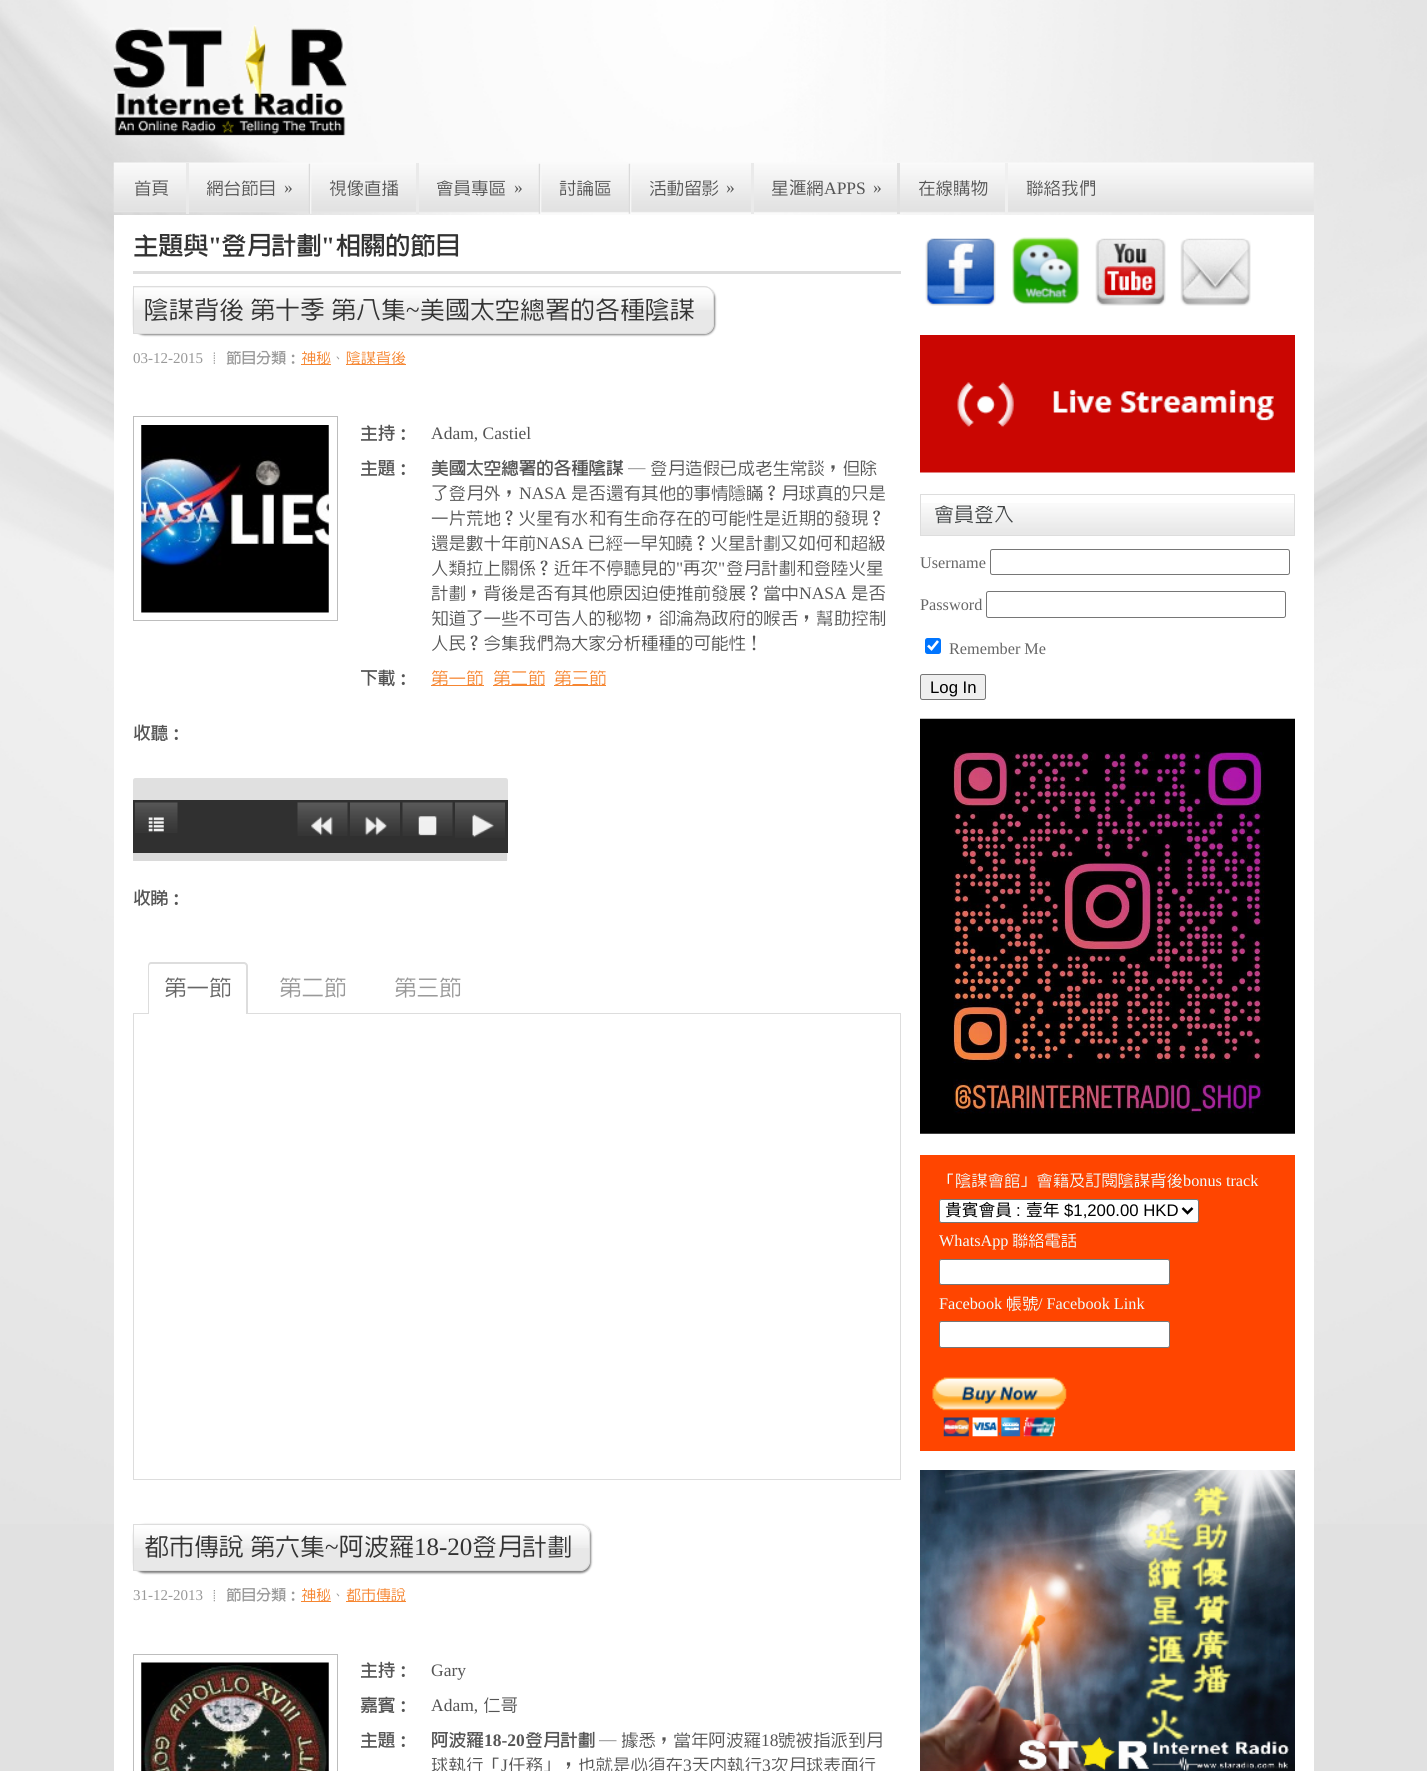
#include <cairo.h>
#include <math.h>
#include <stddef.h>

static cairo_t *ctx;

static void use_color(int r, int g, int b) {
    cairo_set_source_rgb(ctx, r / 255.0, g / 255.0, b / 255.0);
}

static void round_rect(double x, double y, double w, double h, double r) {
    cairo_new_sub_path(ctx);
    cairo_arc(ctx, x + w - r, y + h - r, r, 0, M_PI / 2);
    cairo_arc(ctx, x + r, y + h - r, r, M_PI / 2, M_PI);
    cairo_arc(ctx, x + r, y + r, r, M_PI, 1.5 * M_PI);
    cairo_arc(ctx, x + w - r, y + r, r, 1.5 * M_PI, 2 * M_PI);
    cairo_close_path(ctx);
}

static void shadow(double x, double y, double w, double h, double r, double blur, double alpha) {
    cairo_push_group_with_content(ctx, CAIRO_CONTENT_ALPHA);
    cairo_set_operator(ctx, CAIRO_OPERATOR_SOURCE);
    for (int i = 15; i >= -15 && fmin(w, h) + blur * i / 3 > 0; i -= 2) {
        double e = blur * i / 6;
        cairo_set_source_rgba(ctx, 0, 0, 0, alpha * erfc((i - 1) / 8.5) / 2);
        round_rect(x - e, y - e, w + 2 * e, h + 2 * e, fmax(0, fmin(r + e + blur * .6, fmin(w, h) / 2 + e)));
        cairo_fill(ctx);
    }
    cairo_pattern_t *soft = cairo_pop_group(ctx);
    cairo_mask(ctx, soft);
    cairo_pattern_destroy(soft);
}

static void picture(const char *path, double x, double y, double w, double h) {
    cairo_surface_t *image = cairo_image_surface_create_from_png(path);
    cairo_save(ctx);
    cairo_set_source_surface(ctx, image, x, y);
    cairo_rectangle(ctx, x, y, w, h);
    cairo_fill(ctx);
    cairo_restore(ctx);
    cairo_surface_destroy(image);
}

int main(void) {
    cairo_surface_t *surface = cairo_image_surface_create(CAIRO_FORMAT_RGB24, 1427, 1771);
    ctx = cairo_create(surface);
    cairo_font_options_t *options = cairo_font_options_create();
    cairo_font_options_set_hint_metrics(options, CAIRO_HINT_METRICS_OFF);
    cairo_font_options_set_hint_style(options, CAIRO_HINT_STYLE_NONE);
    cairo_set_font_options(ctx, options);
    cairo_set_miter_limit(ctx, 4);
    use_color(225, 225, 225);
    cairo_paint(ctx);
    picture("img1.png", 0, 0, 1427, 1524);
    picture("img2.png", 113, 25, 234, 111);
    picture("img3.png", 113, 162, 1201, 51);
    cairo_select_font_face(ctx, "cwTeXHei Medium", CAIRO_FONT_SLANT_NORMAL, CAIRO_FONT_WEIGHT_NORMAL);
    cairo_set_font_size(ctx, 17.5);
    use_color(85, 85, 85);
    cairo_move_to(ctx, 134, 194);
    cairo_show_text(ctx, "首頁");
    use_color(234, 234, 234);
    cairo_rectangle(ctx, 186, 163, 3, 51);
    cairo_fill(ctx);
    use_color(85, 85, 85);
    cairo_move_to(ctx, 206, 194);
    cairo_show_text(ctx, "網台節目");
    cairo_select_font_face(ctx, "Liberation Serif", CAIRO_FONT_SLANT_NORMAL, CAIRO_FONT_WEIGHT_NORMAL);
    cairo_move_to(ctx, 284, 193);
    cairo_show_text(ctx, "»");
    picture("img4.png", 308, 163, 4, 51);
    cairo_select_font_face(ctx, "cwTeXHei Medium", CAIRO_FONT_SLANT_NORMAL, CAIRO_FONT_WEIGHT_NORMAL);
    cairo_move_to(ctx, 329, 194);
    cairo_show_text(ctx, "視像直播");
    use_color(234, 234, 234);
    cairo_rectangle(ctx, 416, 163, 3, 51);
    cairo_fill(ctx);
    use_color(85, 85, 85);
    cairo_move_to(ctx, 436, 194);
    cairo_show_text(ctx, "會員專區");
    cairo_select_font_face(ctx, "Liberation Serif", CAIRO_FONT_SLANT_NORMAL, CAIRO_FONT_WEIGHT_NORMAL);
    cairo_move_to(ctx, 514, 193);
    cairo_show_text(ctx, "»");
    picture("img5.png", 538, 163, 4, 51);
    cairo_select_font_face(ctx, "cwTeXHei Medium", CAIRO_FONT_SLANT_NORMAL, CAIRO_FONT_WEIGHT_NORMAL);
    cairo_move_to(ctx, 559, 194);
    cairo_show_text(ctx, "討論區");
    picture("img6.png", 628, 163, 4, 51);
    cairo_move_to(ctx, 649, 194);
    cairo_show_text(ctx, "活動留影");
    cairo_select_font_face(ctx, "Liberation Serif", CAIRO_FONT_SLANT_NORMAL, CAIRO_FONT_WEIGHT_NORMAL);
    cairo_move_to(ctx, 726, 193);
    cairo_show_text(ctx, "»");
    use_color(234, 234, 234);
    cairo_rectangle(ctx, 751, 163, 3, 51);
    cairo_fill(ctx);
    cairo_select_font_face(ctx, "cwTeXHei Medium", CAIRO_FONT_SLANT_NORMAL, CAIRO_FONT_WEIGHT_NORMAL);
    use_color(85, 85, 85);
    cairo_move_to(ctx, 771, 194);
    cairo_show_text(ctx, "星");
    cairo_select_font_face(ctx, "Noto Sans CJK HK", CAIRO_FONT_SLANT_NORMAL, CAIRO_FONT_WEIGHT_NORMAL);
    cairo_move_to(ctx, 789, 194);
    cairo_show_text(ctx, "滙");
    cairo_select_font_face(ctx, "cwTeXHei Medium", CAIRO_FONT_SLANT_NORMAL, CAIRO_FONT_WEIGHT_NORMAL);
    cairo_move_to(ctx, 806, 194);
    cairo_show_text(ctx, "網");
    cairo_select_font_face(ctx, "Liberation Serif", CAIRO_FONT_SLANT_NORMAL, CAIRO_FONT_WEIGHT_NORMAL);
    cairo_move_to(ctx, 824, 194);
    cairo_show_text(ctx, "APPS");
    cairo_move_to(ctx, 873, 193);
    cairo_show_text(ctx, "»");
    use_color(225, 225, 225);
    cairo_rectangle(ctx, 897, 163, 3, 51);
    cairo_fill(ctx);
    cairo_select_font_face(ctx, "cwTeXHei Medium", CAIRO_FONT_SLANT_NORMAL, CAIRO_FONT_WEIGHT_NORMAL);
    use_color(85, 85, 85);
    cairo_move_to(ctx, 918, 194);
    cairo_show_text(ctx, "在線購物");
    use_color(240, 240, 240);
    cairo_rectangle(ctx, 1005, 163, 3, 51);
    cairo_fill(ctx);
    use_color(85, 85, 85);
    cairo_move_to(ctx, 1026, 194);
    cairo_show_text(ctx, "聯絡我們");
    use_color(255, 255, 255);
    cairo_rectangle(ctx, 114, 215, 1200, 1556);
    cairo_fill(ctx);
    use_color(221, 221, 221);
    cairo_rectangle(ctx, 133, 271, 768, 3);
    cairo_fill(ctx);
    cairo_select_font_face(ctx, "cwTeXHei", CAIRO_FONT_SLANT_NORMAL, CAIRO_FONT_WEIGHT_BOLD);
    cairo_set_font_size(ctx, 25);
    use_color(51, 51, 51);
    cairo_move_to(ctx, 133, 254);
    cairo_show_text(ctx, "主題與");
    cairo_select_font_face(ctx, "Liberation Serif", CAIRO_FONT_SLANT_NORMAL, CAIRO_FONT_WEIGHT_BOLD);
    cairo_move_to(ctx, 208, 254);
    cairo_show_text(ctx, "\"");
    cairo_select_font_face(ctx, "cwTeXHei", CAIRO_FONT_SLANT_NORMAL, CAIRO_FONT_WEIGHT_BOLD);
    cairo_move_to(ctx, 221, 254);
    cairo_show_text(ctx, "登月計劃");
    cairo_select_font_face(ctx, "Liberation Serif", CAIRO_FONT_SLANT_NORMAL, CAIRO_FONT_WEIGHT_BOLD);
    cairo_move_to(ctx, 321, 254);
    cairo_show_text(ctx, "\"");
    cairo_select_font_face(ctx, "cwTeXHei", CAIRO_FONT_SLANT_NORMAL, CAIRO_FONT_WEIGHT_BOLD);
    cairo_move_to(ctx, 335, 254);
    cairo_show_text(ctx, "相關的節目");
    use_color(128, 128, 128);
    shadow(134, 288, 581, 47, 10, 1, 1);
    use_color(232, 232, 232);
    cairo_new_path(ctx);
    cairo_move_to(ctx, 133, 286);
    cairo_line_to(ctx, 704, 286);
    cairo_curve_to(ctx, 709.5, 286, 714, 290.5, 714, 296);
    cairo_line_to(ctx, 714, 324);
    cairo_curve_to(ctx, 714, 329.5, 709.5, 334, 704, 334);
    cairo_line_to(ctx, 133, 334);
    cairo_close_path(ctx);
    cairo_fill(ctx);
    picture("img7.png", 134, 287, 580, 23);
    cairo_new_path(ctx);
    cairo_move_to(ctx, 133.5, 286.5);
    cairo_line_to(ctx, 704, 286.5);
    cairo_curve_to(ctx, 709, 286.5, 713.5, 291, 713.5, 296);
    cairo_line_to(ctx, 713.5, 324);
    cairo_curve_to(ctx, 713.5, 329, 709, 333.5, 704, 333.5);
    cairo_line_to(ctx, 133.5, 333.5);
    cairo_close_path(ctx);
    use_color(221, 221, 221);
    cairo_set_line_width(ctx, 1);
    cairo_stroke(ctx);
    cairo_select_font_face(ctx, "cwTeXHei Medium", CAIRO_FONT_SLANT_NORMAL, CAIRO_FONT_WEIGHT_NORMAL);
    use_color(51, 51, 51);
    cairo_move_to(ctx, 144, 318);
    cairo_show_text(ctx, "陰謀背後");
    cairo_move_to(ctx, 250, 318);
    cairo_show_text(ctx, "第十季");
    cairo_move_to(ctx, 331, 318);
    cairo_show_text(ctx, "第八集");
    cairo_select_font_face(ctx, "Liberation Serif", CAIRO_FONT_SLANT_NORMAL, CAIRO_FONT_WEIGHT_NORMAL);
    cairo_move_to(ctx, 406, 318);
    cairo_show_text(ctx, "~");
    cairo_select_font_face(ctx, "cwTeXHei Medium", CAIRO_FONT_SLANT_NORMAL, CAIRO_FONT_WEIGHT_NORMAL);
    cairo_move_to(ctx, 420, 318);
    cairo_show_text(ctx, "美國太空總署的各種陰謀");
    cairo_select_font_face(ctx, "Liberation Serif", CAIRO_FONT_SLANT_NORMAL, CAIRO_FONT_WEIGHT_NORMAL);
    cairo_set_font_size(ctx, 15);
    use_color(153, 153, 153);
    cairo_move_to(ctx, 133, 363);
    cairo_show_text(ctx, "03-12-2015");
    picture("img8.png", 213, 352, 2, 12);
    cairo_select_font_face(ctx, "cwTeXHei", CAIRO_FONT_SLANT_NORMAL, CAIRO_FONT_WEIGHT_BOLD);
    cairo_move_to(ctx, 226, 363);
    cairo_show_text(ctx, "節目分類：");
    use_color(246, 134, 49);
    cairo_rectangle(ctx, 301, 364, 30, 1);
    cairo_fill(ctx);
    cairo_select_font_face(ctx, "cwTeXHei Medium", CAIRO_FONT_SLANT_NORMAL, CAIRO_FONT_WEIGHT_NORMAL);
    cairo_move_to(ctx, 301, 363);
    cairo_show_text(ctx, "神秘");
    use_color(153, 153, 153);
    cairo_move_to(ctx, 331, 363);
    cairo_show_text(ctx, "、");
    use_color(246, 134, 49);
    cairo_rectangle(ctx, 346, 364, 60, 1);
    cairo_fill(ctx);
    cairo_move_to(ctx, 346, 363);
    cairo_show_text(ctx, "陰謀背後");
    cairo_rectangle(ctx, 133.5, 416.5, 204, 204);
    use_color(189, 189, 189);
    cairo_stroke(ctx);
    picture("img9.png", 141, 425, 188, 188);
    cairo_select_font_face(ctx, "cwTeXHei", CAIRO_FONT_SLANT_NORMAL, CAIRO_FONT_WEIGHT_BOLD);
    cairo_set_font_size(ctx, 17.5);
    use_color(85, 85, 85);
    cairo_move_to(ctx, 360, 439);
    cairo_show_text(ctx, "主持：");
    cairo_select_font_face(ctx, "Liberation Serif", CAIRO_FONT_SLANT_NORMAL, CAIRO_FONT_WEIGHT_NORMAL);
    cairo_move_to(ctx, 431, 439);
    cairo_show_text(ctx, "Adam, Castiel");
    cairo_select_font_face(ctx, "cwTeXHei", CAIRO_FONT_SLANT_NORMAL, CAIRO_FONT_WEIGHT_BOLD);
    cairo_move_to(ctx, 360, 474);
    cairo_show_text(ctx, "主題：");
    cairo_move_to(ctx, 431, 474);
    cairo_show_text(ctx, "美國太空總署的各種陰謀");
    cairo_select_font_face(ctx, "cwTeXHei Medium", CAIRO_FONT_SLANT_NORMAL, CAIRO_FONT_WEIGHT_NORMAL);
    cairo_move_to(ctx, 628, 474);
    cairo_show_text(ctx, "—");
    cairo_move_to(ctx, 650, 474);
    cairo_show_text(ctx, "登月造假已成老生常談，但除");
    cairo_move_to(ctx, 431, 499);
    cairo_show_text(ctx, "了登月外，");
    cairo_select_font_face(ctx, "Liberation Serif", CAIRO_FONT_SLANT_NORMAL, CAIRO_FONT_WEIGHT_NORMAL);
    cairo_move_to(ctx, 519, 499);
    cairo_show_text(ctx, "NASA");
    cairo_select_font_face(ctx, "cwTeXHei Medium", CAIRO_FONT_SLANT_NORMAL, CAIRO_FONT_WEIGHT_NORMAL);
    cairo_move_to(ctx, 571, 499);
    cairo_show_text(ctx, "是否還有其他的事情隱瞞？月球真的只是");
    cairo_move_to(ctx, 431, 524);
    cairo_show_text(ctx, "一片荒地？火星有水和有生命存在的可能性是近期的發現？");
    cairo_move_to(ctx, 431, 549);
    cairo_show_text(ctx, "還是數十年前");
    cairo_select_font_face(ctx, "Liberation Serif", CAIRO_FONT_SLANT_NORMAL, CAIRO_FONT_WEIGHT_NORMAL);
    cairo_move_to(ctx, 536, 549);
    cairo_show_text(ctx, "NASA");
    cairo_select_font_face(ctx, "cwTeXHei Medium", CAIRO_FONT_SLANT_NORMAL, CAIRO_FONT_WEIGHT_NORMAL);
    cairo_move_to(ctx, 588, 549);
    cairo_show_text(ctx, "已經一早知曉？火星計劃又如何和超級");
    cairo_move_to(ctx, 431, 574);
    cairo_show_text(ctx, "人類拉上關係？近年不停聽見的");
    cairo_select_font_face(ctx, "Liberation Serif", CAIRO_FONT_SLANT_NORMAL, CAIRO_FONT_WEIGHT_NORMAL);
    cairo_move_to(ctx, 676, 574);
    cairo_show_text(ctx, "\"");
    cairo_select_font_face(ctx, "cwTeXHei Medium", CAIRO_FONT_SLANT_NORMAL, CAIRO_FONT_WEIGHT_NORMAL);
    cairo_move_to(ctx, 683, 574);
    cairo_show_text(ctx, "再次");
    cairo_select_font_face(ctx, "Liberation Serif", CAIRO_FONT_SLANT_NORMAL, CAIRO_FONT_WEIGHT_NORMAL);
    cairo_move_to(ctx, 718, 574);
    cairo_show_text(ctx, "\"");
    cairo_select_font_face(ctx, "cwTeXHei Medium", CAIRO_FONT_SLANT_NORMAL, CAIRO_FONT_WEIGHT_NORMAL);
    cairo_move_to(ctx, 726, 574);
    cairo_show_text(ctx, "登月計劃和登陸火星");
    cairo_move_to(ctx, 431, 599);
    cairo_show_text(ctx, "計劃，背後是否有其他原因迫使推前發展？當中");
    cairo_select_font_face(ctx, "Liberation Serif", CAIRO_FONT_SLANT_NORMAL, CAIRO_FONT_WEIGHT_NORMAL);
    cairo_move_to(ctx, 799, 599);
    cairo_show_text(ctx, "NASA");
    cairo_select_font_face(ctx, "cwTeXHei Medium", CAIRO_FONT_SLANT_NORMAL, CAIRO_FONT_WEIGHT_NORMAL);
    cairo_move_to(ctx, 851, 599);
    cairo_show_text(ctx, "是否");
    cairo_move_to(ctx, 431, 624);
    cairo_show_text(ctx, "知道了一些不可告人的秘物，卻淪為政府的喉舌，幫助控制");
    cairo_move_to(ctx, 431, 649);
    cairo_show_text(ctx, "人民？今集我們為大家分析種種的可能性！");
    cairo_select_font_face(ctx, "cwTeXHei", CAIRO_FONT_SLANT_NORMAL, CAIRO_FONT_WEIGHT_BOLD);
    cairo_move_to(ctx, 360, 684);
    cairo_show_text(ctx, "下載：");
    use_color(246, 134, 49);
    cairo_rectangle(ctx, 431, 685, 53, 1);
    cairo_fill(ctx);
    cairo_select_font_face(ctx, "cwTeXHei Medium", CAIRO_FONT_SLANT_NORMAL, CAIRO_FONT_WEIGHT_NORMAL);
    cairo_move_to(ctx, 431, 684);
    cairo_show_text(ctx, "第一節");
    cairo_rectangle(ctx, 493, 685, 52, 1);
    cairo_fill(ctx);
    cairo_move_to(ctx, 493, 684);
    cairo_show_text(ctx, "第二節");
    cairo_rectangle(ctx, 554, 685, 52, 1);
    cairo_fill(ctx);
    cairo_move_to(ctx, 554, 684);
    cairo_show_text(ctx, "第三節");
    cairo_select_font_face(ctx, "cwTeXHei", CAIRO_FONT_SLANT_NORMAL, CAIRO_FONT_WEIGHT_BOLD);
    use_color(85, 85, 85);
    cairo_move_to(ctx, 133, 739);
    cairo_show_text(ctx, "收聽：");
    use_color(224, 224, 224);
    cairo_new_path(ctx);
    cairo_move_to(ctx, 135.5, 778);
    cairo_line_to(ctx, 505.5, 778);
    cairo_curve_to(ctx, 507, 778, 508, 779, 508, 780.5);
    cairo_line_to(ctx, 508, 800);
    cairo_line_to(ctx, 133, 800);
    cairo_line_to(ctx, 133, 780.5);
    cairo_curve_to(ctx, 133, 779, 134, 778, 135.5, 778);
    cairo_close_path(ctx);
    cairo_fill(ctx);
    use_color(48, 48, 48);
    cairo_rectangle(ctx, 133, 800, 375, 53);
    cairo_fill(ctx);
    picture("img10.png", 135, 802, 43, 31);
    picture("img11.png", 297, 802, 51, 34);
    picture("img12.png", 350, 802, 50, 34);
    picture("img13.png", 402, 802, 51, 34);
    picture("img14.png", 455, 802, 50, 36);
    use_color(250, 250, 250);
    cairo_new_path(ctx);
    cairo_move_to(ctx, 133, 853);
    cairo_line_to(ctx, 508, 853);
    cairo_line_to(ctx, 508, 858.5);
    cairo_curve_to(ctx, 508, 860, 507, 861, 505.5, 861);
    cairo_line_to(ctx, 135.5, 861);
    cairo_curve_to(ctx, 134, 861, 133, 860, 133, 858.5);
    cairo_close_path(ctx);
    cairo_fill(ctx);
    cairo_set_source_rgba(ctx, 0, 0, 0, 0.13);
    cairo_rectangle(ctx, 133, 853, 374, 8);
    cairo_fill(ctx);
    use_color(85, 85, 85);
    cairo_move_to(ctx, 133, 904);
    cairo_show_text(ctx, "收睇：");
    cairo_rectangle(ctx, 133.5, 1013.5, 767, 466);
    use_color(221, 221, 221);
    cairo_stroke(ctx);
    use_color(255, 255, 255);
    cairo_new_path(ctx);
    cairo_move_to(ctx, 152, 963);
    cairo_line_to(ctx, 244, 963);
    cairo_curve_to(ctx, 246, 963, 248, 965, 248, 967);
    cairo_line_to(ctx, 248, 1014);
    cairo_line_to(ctx, 148, 1014);
    cairo_line_to(ctx, 148, 967);
    cairo_curve_to(ctx, 148, 965, 150, 963, 152, 963);
    cairo_close_path(ctx);
    cairo_fill(ctx);
    use_color(221, 221, 221);
    cairo_set_fill_rule(ctx, CAIRO_FILL_RULE_EVEN_ODD);
    cairo_new_path(ctx);
    cairo_move_to(ctx, 151, 962);
    cairo_line_to(ctx, 244, 962);
    cairo_curve_to(ctx, 246, 962, 248, 964, 248, 966);
    cairo_line_to(ctx, 248, 1014);
    cairo_line_to(ctx, 148, 1014);
    cairo_line_to(ctx, 148, 966);
    cairo_curve_to(ctx, 148, 964, 149, 962, 151, 962);
    cairo_close_path(ctx);
    cairo_move_to(ctx, 151, 964);
    cairo_line_to(ctx, 244, 964);
    cairo_curve_to(ctx, 245, 964, 246, 965, 246, 966);
    cairo_line_to(ctx, 246, 1014);
    cairo_line_to(ctx, 149, 1014);
    cairo_line_to(ctx, 149, 966);
    cairo_curve_to(ctx, 149, 965, 150, 964, 151, 964);
    cairo_close_path(ctx);
    cairo_fill(ctx);
    cairo_select_font_face(ctx, "cwTeXHei Medium", CAIRO_FONT_SLANT_NORMAL, CAIRO_FONT_WEIGHT_NORMAL);
    cairo_set_font_size(ctx, 22.5);
    use_color(102, 102, 102);
    cairo_move_to(ctx, 164, 995);
    cairo_show_text(ctx, "第一節");
    use_color(153, 153, 153);
    cairo_move_to(ctx, 279, 995);
    cairo_show_text(ctx, "第二節");
    cairo_move_to(ctx, 394, 995);
    cairo_show_text(ctx, "第三節");
    use_color(128, 128, 128);
    shadow(134, 1525, 457, 48, 10, 1, 1);
    use_color(232, 232, 232);
    cairo_new_path(ctx);
    cairo_move_to(ctx, 133, 1524);
    cairo_line_to(ctx, 580, 1524);
    cairo_curve_to(ctx, 585.5, 1524, 590, 1528.5, 590, 1534);
    cairo_line_to(ctx, 590, 1561);
    cairo_curve_to(ctx, 590, 1566.5, 585.5, 1571, 580, 1571);
    cairo_line_to(ctx, 133, 1571);
    cairo_close_path(ctx);
    cairo_fill(ctx);
    picture("img15.png", 134, 1525, 456, 23);
    cairo_new_path(ctx);
    cairo_move_to(ctx, 133.5, 1524.5);
    cairo_line_to(ctx, 580, 1524.5);
    cairo_curve_to(ctx, 585, 1524.5, 589.5, 1529, 589.5, 1534);
    cairo_line_to(ctx, 589.5, 1561);
    cairo_curve_to(ctx, 589.5, 1566, 585, 1570.5, 580, 1570.5);
    cairo_line_to(ctx, 133.5, 1570.5);
    cairo_close_path(ctx);
    use_color(221, 221, 221);
    cairo_stroke(ctx);
    cairo_set_font_size(ctx, 25);
    use_color(51, 51, 51);
    cairo_move_to(ctx, 144, 1555);
    cairo_show_text(ctx, "都市傳說");
    cairo_move_to(ctx, 250, 1555);
    cairo_show_text(ctx, "第六集");
    cairo_select_font_face(ctx, "Liberation Serif", CAIRO_FONT_SLANT_NORMAL, CAIRO_FONT_WEIGHT_NORMAL);
    cairo_move_to(ctx, 325, 1555);
    cairo_show_text(ctx, "~");
    cairo_select_font_face(ctx, "cwTeXHei Medium", CAIRO_FONT_SLANT_NORMAL, CAIRO_FONT_WEIGHT_NORMAL);
    cairo_move_to(ctx, 339, 1555);
    cairo_show_text(ctx, "阿波羅");
    cairo_select_font_face(ctx, "Liberation Serif", CAIRO_FONT_SLANT_NORMAL, CAIRO_FONT_WEIGHT_NORMAL);
    cairo_move_to(ctx, 414, 1555);
    cairo_show_text(ctx, "18-20");
    cairo_select_font_face(ctx, "cwTeXHei Medium", CAIRO_FONT_SLANT_NORMAL, CAIRO_FONT_WEIGHT_NORMAL);
    cairo_move_to(ctx, 472, 1555);
    cairo_show_text(ctx, "登月計劃");
    cairo_select_font_face(ctx, "Liberation Serif", CAIRO_FONT_SLANT_NORMAL, CAIRO_FONT_WEIGHT_NORMAL);
    cairo_set_font_size(ctx, 15);
    use_color(153, 153, 153);
    cairo_move_to(ctx, 133, 1600);
    cairo_show_text(ctx, "31-12-2013");
    picture("img16.png", 213, 1590, 2, 12);
    cairo_select_font_face(ctx, "cwTeXHei", CAIRO_FONT_SLANT_NORMAL, CAIRO_FONT_WEIGHT_BOLD);
    cairo_move_to(ctx, 226, 1600);
    cairo_show_text(ctx, "節目分類：");
    use_color(246, 134, 49);
    cairo_rectangle(ctx, 301, 1601, 30, 1);
    cairo_fill(ctx);
    cairo_select_font_face(ctx, "cwTeXHei Medium", CAIRO_FONT_SLANT_NORMAL, CAIRO_FONT_WEIGHT_NORMAL);
    cairo_move_to(ctx, 301, 1600);
    cairo_show_text(ctx, "神秘");
    use_color(153, 153, 153);
    cairo_move_to(ctx, 331, 1600);
    cairo_show_text(ctx, "、");
    use_color(246, 134, 49);
    cairo_rectangle(ctx, 346, 1601, 60, 1);
    cairo_fill(ctx);
    cairo_move_to(ctx, 346, 1600);
    cairo_show_text(ctx, "都市傳說");
    cairo_rectangle(ctx, 133.5, 1654.5, 204, 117);
    use_color(189, 189, 189);
    cairo_stroke(ctx);
    picture("img17.png", 141, 1662, 188, 109);
    cairo_select_font_face(ctx, "cwTeXHei", CAIRO_FONT_SLANT_NORMAL, CAIRO_FONT_WEIGHT_BOLD);
    cairo_set_font_size(ctx, 17.5);
    use_color(85, 85, 85);
    cairo_move_to(ctx, 360, 1676);
    cairo_show_text(ctx, "主持：");
    cairo_select_font_face(ctx, "Liberation Serif", CAIRO_FONT_SLANT_NORMAL, CAIRO_FONT_WEIGHT_NORMAL);
    cairo_move_to(ctx, 431, 1676);
    cairo_show_text(ctx, "Gary");
    cairo_select_font_face(ctx, "cwTeXHei", CAIRO_FONT_SLANT_NORMAL, CAIRO_FONT_WEIGHT_BOLD);
    cairo_move_to(ctx, 360, 1711);
    cairo_show_text(ctx, "嘉賓：");
    cairo_select_font_face(ctx, "Liberation Serif", CAIRO_FONT_SLANT_NORMAL, CAIRO_FONT_WEIGHT_NORMAL);
    cairo_move_to(ctx, 431, 1711);
    cairo_show_text(ctx, "Adam,");
    cairo_select_font_face(ctx, "cwTeXHei Medium", CAIRO_FONT_SLANT_NORMAL, CAIRO_FONT_WEIGHT_NORMAL);
    cairo_move_to(ctx, 483, 1711);
    cairo_show_text(ctx, "仁哥");
    cairo_select_font_face(ctx, "cwTeXHei", CAIRO_FONT_SLANT_NORMAL, CAIRO_FONT_WEIGHT_BOLD);
    cairo_move_to(ctx, 360, 1746);
    cairo_show_text(ctx, "主題：");
    cairo_move_to(ctx, 431, 1746);
    cairo_show_text(ctx, "阿波羅");
    cairo_select_font_face(ctx, "Liberation Serif", CAIRO_FONT_SLANT_NORMAL, CAIRO_FONT_WEIGHT_BOLD);
    cairo_move_to(ctx, 484, 1746);
    cairo_show_text(ctx, "18-20");
    cairo_select_font_face(ctx, "cwTeXHei", CAIRO_FONT_SLANT_NORMAL, CAIRO_FONT_WEIGHT_BOLD);
    cairo_move_to(ctx, 525, 1746);
    cairo_show_text(ctx, "登月計劃");
    cairo_select_font_face(ctx, "cwTeXHei Medium", CAIRO_FONT_SLANT_NORMAL, CAIRO_FONT_WEIGHT_NORMAL);
    cairo_move_to(ctx, 599, 1746);
    cairo_show_text(ctx, "—");
    cairo_move_to(ctx, 621, 1746);
    cairo_show_text(ctx, "據悉，當年阿波羅");
    cairo_select_font_face(ctx, "Liberation Serif", CAIRO_FONT_SLANT_NORMAL, CAIRO_FONT_WEIGHT_NORMAL);
    cairo_move_to(ctx, 761, 1746);
    cairo_show_text(ctx, "18");
    cairo_select_font_face(ctx, "cwTeXHei Medium", CAIRO_FONT_SLANT_NORMAL, CAIRO_FONT_WEIGHT_NORMAL);
    cairo_move_to(ctx, 778, 1746);
    cairo_show_text(ctx, "號被指派到月");
    cairo_move_to(ctx, 431, 1771);
    cairo_show_text(ctx, "球執行「");
    cairo_select_font_face(ctx, "Liberation Serif", CAIRO_FONT_SLANT_NORMAL, CAIRO_FONT_WEIGHT_NORMAL);
    cairo_move_to(ctx, 501, 1771);
    cairo_show_text(ctx, "J");
    cairo_select_font_face(ctx, "cwTeXHei Medium", CAIRO_FONT_SLANT_NORMAL, CAIRO_FONT_WEIGHT_NORMAL);
    cairo_move_to(ctx, 508, 1771);
    cairo_show_text(ctx, "任務」，也就是必須在");
    cairo_select_font_face(ctx, "Liberation Serif", CAIRO_FONT_SLANT_NORMAL, CAIRO_FONT_WEIGHT_NORMAL);
    cairo_move_to(ctx, 683, 1771);
    cairo_show_text(ctx, "3");
    cairo_select_font_face(ctx, "cwTeXHei Medium", CAIRO_FONT_SLANT_NORMAL, CAIRO_FONT_WEIGHT_NORMAL);
    cairo_move_to(ctx, 692, 1771);
    cairo_show_text(ctx, "天內執行");
    cairo_select_font_face(ctx, "Liberation Serif", CAIRO_FONT_SLANT_NORMAL, CAIRO_FONT_WEIGHT_NORMAL);
    cairo_move_to(ctx, 762, 1771);
    cairo_show_text(ctx, "3");
    cairo_select_font_face(ctx, "cwTeXHei Medium", CAIRO_FONT_SLANT_NORMAL, CAIRO_FONT_WEIGHT_NORMAL);
    cairo_move_to(ctx, 771, 1771);
    cairo_show_text(ctx, "次月球表面行");
    picture("img18.png", 925, 238, 71, 68);
    picture("img19.png", 1012, 237, 68, 68);
    picture("img20.png", 1095, 238, 71, 68);
    picture("img21.png", 1180, 238, 71, 68);
    picture("img22.png", 920, 335, 375, 138);
    picture("img23.png", 921, 503, 373, 32);
    cairo_rectangle(ctx, 920.5, 494.5, 374, 41);
    use_color(221, 221, 221);
    cairo_stroke(ctx);
    cairo_set_font_size(ctx, 20);
    use_color(65, 68, 69);
    cairo_move_to(ctx, 934, 521);
    cairo_show_text(ctx, "會員登入");
    cairo_select_font_face(ctx, "Liberation Serif", CAIRO_FONT_SLANT_NORMAL, CAIRO_FONT_WEIGHT_NORMAL);
    cairo_set_font_size(ctx, 16.25);
    use_color(102, 102, 102);
    cairo_move_to(ctx, 920, 568);
    cairo_show_text(ctx, "Username");
    round_rect(990.5, 549.5, 299, 25, 2);
    use_color(118, 118, 118);
    cairo_stroke(ctx);
    use_color(102, 102, 102);
    cairo_move_to(ctx, 920, 610);
    cairo_show_text(ctx, "Password");
    round_rect(986.5, 591.5, 299, 26, 2);
    use_color(118, 118, 118);
    cairo_stroke(ctx);
    use_color(0, 117, 255);
    round_rect(925, 638, 16, 16, 2.5);
    cairo_fill(ctx);
    cairo_new_path(ctx);
    cairo_move_to(ctx, 928, 645.5);
    cairo_line_to(ctx, 931.5, 649);
    cairo_line_to(ctx, 938, 641);
    use_color(255, 255, 255);
    cairo_set_line_width(ctx, 2.6);
    cairo_stroke(ctx);
    use_color(102, 102, 102);
    cairo_move_to(ctx, 949, 654);
    cairo_show_text(ctx, "Remember Me");
    use_color(239, 239, 239);
    round_rect(920.5, 674.5, 65, 25, 2);
    cairo_fill_preserve(ctx);
    use_color(118, 118, 118);
    cairo_set_line_width(ctx, 1);
    cairo_stroke(ctx);
    cairo_select_font_face(ctx, "Liberation Sans", CAIRO_FONT_SLANT_NORMAL, CAIRO_FONT_WEIGHT_NORMAL);
    cairo_set_font_size(ctx, 16.75);
    use_color(0, 0, 0);
    cairo_move_to(ctx, 930, 693);
    cairo_show_text(ctx, "Log In");
    picture("img24.png", 920, 718, 375, 416);
    use_color(255, 69, 0);
    cairo_rectangle(ctx, 920, 1155, 375, 296);
    cairo_fill(ctx);
    cairo_select_font_face(ctx, "cwTeXHei Medium", CAIRO_FONT_SLANT_NORMAL, CAIRO_FONT_WEIGHT_NORMAL);
    cairo_set_font_size(ctx, 16.25);
    use_color(240, 255, 255);
    cairo_move_to(ctx, 939, 1186);
    cairo_show_text(ctx, "「陰謀會館」會籍及訂閱陰謀背後");
    cairo_select_font_face(ctx, "Liberation Serif", CAIRO_FONT_SLANT_NORMAL, CAIRO_FONT_WEIGHT_NORMAL);
    cairo_move_to(ctx, 1183, 1186);
    cairo_show_text(ctx, "bonus track");
    use_color(255, 255, 255);
    round_rect(939.5, 1199.5, 259, 23, 2);
    cairo_fill_preserve(ctx);
    use_color(118, 118, 118);
    cairo_stroke(ctx);
    cairo_new_path(ctx);
    cairo_move_to(ctx, 1182.5, 1208);
    cairo_line_to(ctx, 1187.5, 1213);
    cairo_line_to(ctx, 1192.5, 1208);
    use_color(0, 0, 0);
    cairo_set_line_width(ctx, 2.5);
    cairo_stroke(ctx);
    cairo_select_font_face(ctx, "Noto Sans CJK HK", CAIRO_FONT_SLANT_NORMAL, CAIRO_FONT_WEIGHT_NORMAL);
    cairo_set_font_size(ctx, 16.75);
    cairo_move_to(ctx, 945, 1216);
    cairo_show_text(ctx, "貴賓會員");
    cairo_select_font_face(ctx, "Liberation Sans", CAIRO_FONT_SLANT_NORMAL, CAIRO_FONT_WEIGHT_NORMAL);
    cairo_move_to(ctx, 1016, 1216);
    cairo_show_text(ctx, ":");
    cairo_select_font_face(ctx, "Noto Sans CJK HK", CAIRO_FONT_SLANT_NORMAL, CAIRO_FONT_WEIGHT_NORMAL);
    cairo_move_to(ctx, 1026, 1216);
    cairo_show_text(ctx, "壹年");
    cairo_select_font_face(ctx, "Liberation Sans", CAIRO_FONT_SLANT_NORMAL, CAIRO_FONT_WEIGHT_NORMAL);
    cairo_move_to(ctx, 1064, 1216);
    cairo_show_text(ctx, "$1,200.00 HKD");
    cairo_select_font_face(ctx, "Liberation Serif", CAIRO_FONT_SLANT_NORMAL, CAIRO_FONT_WEIGHT_NORMAL);
    cairo_set_font_size(ctx, 16.25);
    use_color(240, 255, 255);
    cairo_move_to(ctx, 939, 1246);
    cairo_show_text(ctx, "WhatsApp");
    cairo_select_font_face(ctx, "cwTeXHei Medium", CAIRO_FONT_SLANT_NORMAL, CAIRO_FONT_WEIGHT_NORMAL);
    cairo_move_to(ctx, 1012, 1246);
    cairo_show_text(ctx, "聯絡電話");
    use_color(255, 255, 255);
    round_rect(939.5, 1259.5, 230, 25, 2);
    cairo_fill_preserve(ctx);
    use_color(118, 118, 118);
    cairo_set_line_width(ctx, 1);
    cairo_stroke(ctx);
    cairo_select_font_face(ctx, "Liberation Serif", CAIRO_FONT_SLANT_NORMAL, CAIRO_FONT_WEIGHT_NORMAL);
    use_color(240, 255, 255);
    cairo_move_to(ctx, 939, 1309);
    cairo_show_text(ctx, "Facebook");
    cairo_select_font_face(ctx, "cwTeXHei Medium", CAIRO_FONT_SLANT_NORMAL, CAIRO_FONT_WEIGHT_NORMAL);
    cairo_move_to(ctx, 1006, 1309);
    cairo_show_text(ctx, "帳號");
    cairo_select_font_face(ctx, "Liberation Serif", CAIRO_FONT_SLANT_NORMAL, CAIRO_FONT_WEIGHT_NORMAL);
    cairo_move_to(ctx, 1038, 1309);
    cairo_show_text(ctx, "/ Facebook Link");
    use_color(255, 255, 255);
    round_rect(939.5, 1321.5, 230, 26, 2);
    cairo_fill_preserve(ctx);
    use_color(118, 118, 118);
    cairo_stroke(ctx);
    picture("img25.png", 932, 1377, 135, 60);
    picture("img26.png", 920, 1470, 375, 301);
    cairo_surface_write_to_png(surface, "result.png");
    cairo_font_options_destroy(options);
    cairo_destroy(ctx);
    cairo_surface_destroy(surface);
    return 0;
}
